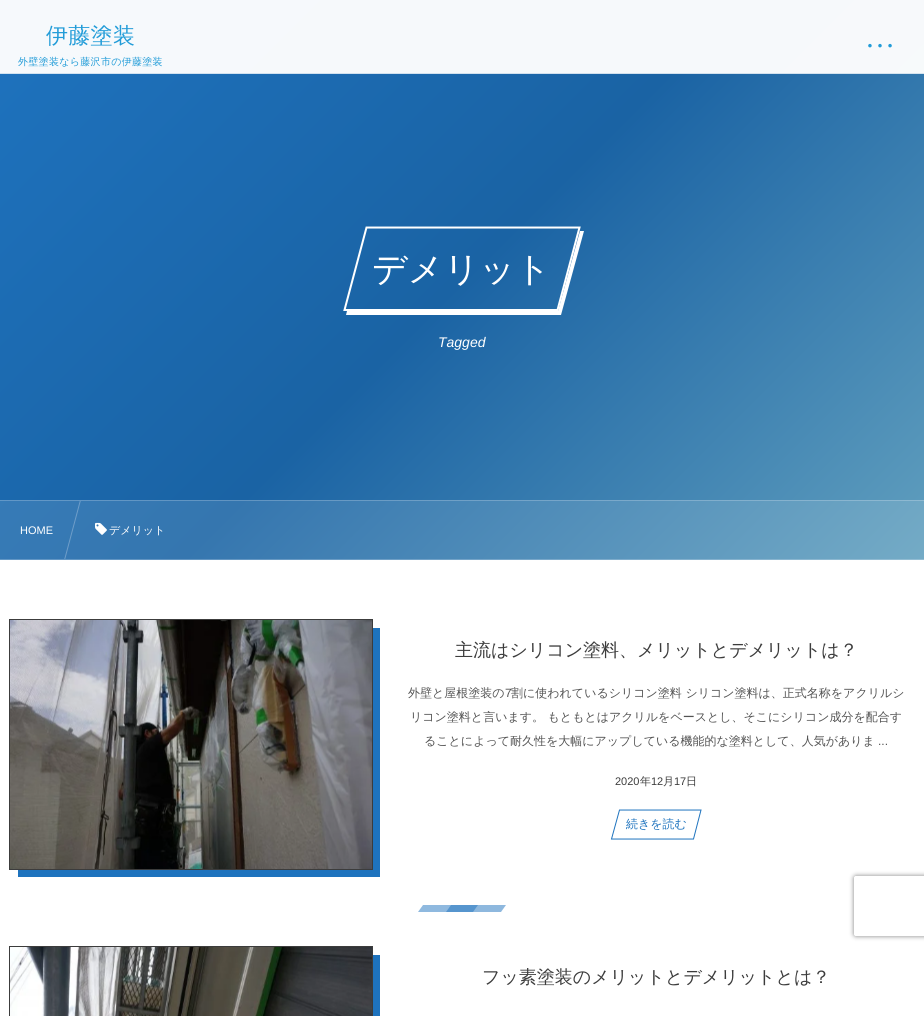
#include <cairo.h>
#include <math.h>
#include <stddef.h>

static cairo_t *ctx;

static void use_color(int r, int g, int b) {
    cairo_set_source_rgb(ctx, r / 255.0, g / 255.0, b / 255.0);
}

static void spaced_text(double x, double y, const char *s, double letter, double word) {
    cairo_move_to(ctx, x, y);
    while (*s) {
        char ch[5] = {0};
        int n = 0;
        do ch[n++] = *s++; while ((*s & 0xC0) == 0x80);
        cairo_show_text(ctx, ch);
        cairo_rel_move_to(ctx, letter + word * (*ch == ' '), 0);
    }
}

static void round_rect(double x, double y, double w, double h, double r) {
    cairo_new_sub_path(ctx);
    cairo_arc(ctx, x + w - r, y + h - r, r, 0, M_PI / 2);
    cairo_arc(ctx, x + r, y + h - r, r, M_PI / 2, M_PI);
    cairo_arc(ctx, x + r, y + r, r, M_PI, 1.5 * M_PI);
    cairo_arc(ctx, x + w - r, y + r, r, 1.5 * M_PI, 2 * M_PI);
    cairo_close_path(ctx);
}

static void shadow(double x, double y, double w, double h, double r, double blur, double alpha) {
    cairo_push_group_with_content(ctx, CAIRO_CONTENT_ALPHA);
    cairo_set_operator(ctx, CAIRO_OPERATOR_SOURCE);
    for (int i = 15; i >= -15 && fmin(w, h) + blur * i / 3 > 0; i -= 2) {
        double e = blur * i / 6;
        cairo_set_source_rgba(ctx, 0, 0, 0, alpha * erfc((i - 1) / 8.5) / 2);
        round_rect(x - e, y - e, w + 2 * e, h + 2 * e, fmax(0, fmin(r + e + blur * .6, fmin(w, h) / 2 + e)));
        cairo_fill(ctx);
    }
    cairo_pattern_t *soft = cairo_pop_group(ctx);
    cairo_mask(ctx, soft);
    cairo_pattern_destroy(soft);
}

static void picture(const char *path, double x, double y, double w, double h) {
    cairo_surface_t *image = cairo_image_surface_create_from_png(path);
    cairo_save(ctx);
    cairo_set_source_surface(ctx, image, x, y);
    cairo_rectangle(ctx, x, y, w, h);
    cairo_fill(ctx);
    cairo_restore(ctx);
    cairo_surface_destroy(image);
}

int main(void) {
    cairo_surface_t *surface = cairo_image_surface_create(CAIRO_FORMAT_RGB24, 924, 1016);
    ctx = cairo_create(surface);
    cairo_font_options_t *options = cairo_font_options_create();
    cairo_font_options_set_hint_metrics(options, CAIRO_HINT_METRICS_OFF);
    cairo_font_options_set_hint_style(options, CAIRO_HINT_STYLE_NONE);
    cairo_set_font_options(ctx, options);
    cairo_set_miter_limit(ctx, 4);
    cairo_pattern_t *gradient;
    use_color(255, 255, 255);
    cairo_paint(ctx);
    gradient = cairo_pattern_create_linear(91, -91, 833, 651);
    cairo_pattern_add_color_stop_rgba(gradient, 0, 0.965, 0.976, 0.988, 1);
    cairo_pattern_add_color_stop_rgba(gradient, 0.5, 0.965, 0.976, 0.984, 1);
    cairo_pattern_add_color_stop_rgba(gradient, 1, 0.976, 0.984, 0.988, 1);
    cairo_set_source(ctx, gradient);
    cairo_pattern_destroy(gradient);
    cairo_rectangle(ctx, 0, 0, 924, 73);
    cairo_fill(ctx);
    cairo_select_font_face(ctx, "WenQuanYi Zen Hei Medium", CAIRO_FONT_SLANT_NORMAL, CAIRO_FONT_WEIGHT_NORMAL);
    cairo_set_font_size(ctx, 22);
    use_color(34, 156, 216);
    spaced_text(46, 43, "伊藤塗装", 0.3, 0);
    cairo_set_font_size(ctx, 10);
    spaced_text(18, 65, "外壁塗装なら藤沢市の伊藤塗装", 0.3, 0);
    cairo_select_font_face(ctx, "Liberation Serif", CAIRO_FONT_SLANT_NORMAL, CAIRO_FONT_WEIGHT_NORMAL);
    cairo_set_font_size(ctx, 30);
    cairo_move_to(ctx, 865, 47);
    cairo_show_text(ctx, "…");
    gradient = cairo_pattern_create_linear(91, -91, 833, 651);
    cairo_pattern_add_color_stop_rgba(gradient, 0, 0.118, 0.451, 0.749, 1);
    cairo_pattern_add_color_stop_rgba(gradient, 0.5, 0.102, 0.388, 0.643, 1);
    cairo_pattern_add_color_stop_rgba(gradient, 1, 0.38, 0.624, 0.745, 1);
    cairo_set_source(ctx, gradient);
    cairo_pattern_destroy(gradient);
    cairo_rectangle(ctx, 0, 74, 924, 426);
    cairo_fill(ctx);
    gradient = cairo_pattern_create_linear(91, -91, 833, 651);
    cairo_pattern_add_color_stop_rgba(gradient, 0, 0.824, 0.89, 0.949, 1);
    cairo_pattern_add_color_stop_rgba(gradient, 0.5, 0.82, 0.878, 0.929, 1);
    cairo_pattern_add_color_stop_rgba(gradient, 1, 0.875, 0.925, 0.949, 1);
    cairo_set_source(ctx, gradient);
    cairo_pattern_destroy(gradient);
    cairo_rectangle(ctx, 0, 73, 924, 1);
    cairo_fill(ctx);
    gradient = cairo_pattern_create_linear(91, -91, 833, 651);
    cairo_pattern_add_color_stop_rgba(gradient, 0, 0.224, 0.518, 0.78, 1);
    cairo_pattern_add_color_stop_rgba(gradient, 0.5, 0.208, 0.463, 0.686, 1);
    cairo_pattern_add_color_stop_rgba(gradient, 1, 0.455, 0.671, 0.776, 1);
    cairo_set_source(ctx, gradient);
    cairo_pattern_destroy(gradient);
    cairo_rectangle(ctx, 0, 501, 924, 58);
    cairo_fill(ctx);
    gradient = cairo_pattern_create_linear(91, -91, 833, 651);
    cairo_pattern_add_color_stop_rgba(gradient, 0, 0.396, 0.624, 0.827, 1);
    cairo_pattern_add_color_stop_rgba(gradient, 0.5, 0.38, 0.58, 0.757, 1);
    cairo_pattern_add_color_stop_rgba(gradient, 1, 0.576, 0.741, 0.827, 1);
    cairo_set_source(ctx, gradient);
    cairo_pattern_destroy(gradient);
    cairo_rectangle(ctx, 0, 559, 924, 1);
    cairo_fill(ctx);
    cairo_rectangle(ctx, 0, 500, 924, 1);
    cairo_fill(ctx);
    use_color(255, 255, 255);
    cairo_new_path(ctx);
    cairo_move_to(ctx, 347, 311);
    cairo_line_to(ctx, 346, 315);
    cairo_line_to(ctx, 561, 315);
    cairo_line_to(ctx, 584, 231);
    cairo_line_to(ctx, 580, 231);
    cairo_line_to(ctx, 558, 311);
    cairo_close_path(ctx);
    cairo_fill(ctx);
    cairo_new_path(ctx);
    cairo_move_to(ctx, 366.5, 227.5);
    cairo_line_to(ctx, 579.5, 227.5);
    cairo_line_to(ctx, 557.5, 310);
    cairo_line_to(ctx, 344.5, 310);
    cairo_close_path(ctx);
    cairo_stroke(ctx);
    cairo_select_font_face(ctx, "WenQuanYi Zen Hei Medium", CAIRO_FONT_SLANT_NORMAL, CAIRO_FONT_WEIGHT_NORMAL);
    cairo_set_font_size(ctx, 35);
    cairo_move_to(ctx, 372, 281);
    cairo_show_text(ctx, "デメリット");
    cairo_select_font_face(ctx, "Liberation Sans", CAIRO_FONT_SLANT_ITALIC, CAIRO_FONT_WEIGHT_NORMAL);
    cairo_set_font_size(ctx, 14);
    cairo_move_to(ctx, 438, 347);
    cairo_show_text(ctx, "Tagged");
    cairo_select_font_face(ctx, "Liberation Sans", CAIRO_FONT_SLANT_NORMAL, CAIRO_FONT_WEIGHT_NORMAL);
    cairo_set_font_size(ctx, 11);
    cairo_move_to(ctx, 20, 534);
    cairo_show_text(ctx, "HOME");
    cairo_save(ctx);
    cairo_rectangle(ctx, 0, 501, 924, 58);
    cairo_clip(ctx);
    use_color(111, 158, 201);
    cairo_new_path(ctx);
    cairo_move_to(ctx, 80, 500);
    cairo_line_to(ctx, 81, 500);
    cairo_line_to(ctx, 65, 560);
    cairo_line_to(ctx, 64, 560);
    cairo_close_path(ctx);
    cairo_fill(ctx);
    cairo_restore(ctx);
    picture("img1.png", 95, 522, 12, 13);
    cairo_select_font_face(ctx, "WenQuanYi Zen Hei Medium", CAIRO_FONT_SLANT_NORMAL, CAIRO_FONT_WEIGHT_NORMAL);
    cairo_move_to(ctx, 109, 534);
    cairo_show_text(ctx, "デメリット");
    use_color(30, 115, 190);
    cairo_new_path(ctx);
    cairo_move_to(ctx, 18, 869);
    cairo_line_to(ctx, 18, 877);
    cairo_line_to(ctx, 380, 877);
    cairo_line_to(ctx, 380, 628);
    cairo_line_to(ctx, 372, 628);
    cairo_line_to(ctx, 372, 869);
    cairo_close_path(ctx);
    cairo_fill(ctx);
    cairo_rectangle(ctx, 9.5, 619.5, 363, 250);
    use_color(60, 60, 60);
    cairo_set_line_width(ctx, 1);
    cairo_stroke(ctx);
    picture("img2.png", 10, 620, 362, 249);
    cairo_set_font_size(ctx, 18);
    cairo_move_to(ctx, 455, 656);
    cairo_show_text(ctx, "主流はシリコン塗料、メリットとデメリットは？");
    cairo_set_font_size(ctx, 12);
    use_color(83, 83, 83);
    cairo_move_to(ctx, 408, 697);
    cairo_show_text(ctx, "外壁と屋根塗装の");
    cairo_select_font_face(ctx, "Liberation Sans", CAIRO_FONT_SLANT_NORMAL, CAIRO_FONT_WEIGHT_NORMAL);
    cairo_move_to(ctx, 505, 697);
    cairo_show_text(ctx, "7");
    cairo_select_font_face(ctx, "WenQuanYi Zen Hei Medium", CAIRO_FONT_SLANT_NORMAL, CAIRO_FONT_WEIGHT_NORMAL);
    cairo_move_to(ctx, 511, 697);
    cairo_show_text(ctx, "割に使われているシリコン塗料 シリコン塗料は、正式名称をアクリルシ");
    cairo_move_to(ctx, 410, 721);
    cairo_show_text(ctx, "リコン塗料と言います。 もともとはアクリルをベースとし、そこにシリコン成分を配合す");
    cairo_move_to(ctx, 424, 745);
    cairo_show_text(ctx, "ることによって耐久性を大幅にアップしている機能的な塗料として、人気がありま");
    cairo_select_font_face(ctx, "Liberation Sans", CAIRO_FONT_SLANT_NORMAL, CAIRO_FONT_WEIGHT_NORMAL);
    cairo_move_to(ctx, 878, 745);
    cairo_show_text(ctx, "...");
    cairo_set_font_size(ctx, 11);
    use_color(60, 60, 60);
    cairo_move_to(ctx, 615, 785);
    cairo_show_text(ctx, "2020");
    cairo_select_font_face(ctx, "WenQuanYi Zen Hei Medium", CAIRO_FONT_SLANT_NORMAL, CAIRO_FONT_WEIGHT_NORMAL);
    cairo_move_to(ctx, 640, 785);
    cairo_show_text(ctx, "年");
    cairo_select_font_face(ctx, "Liberation Sans", CAIRO_FONT_SLANT_NORMAL, CAIRO_FONT_WEIGHT_NORMAL);
    cairo_move_to(ctx, 651, 785);
    cairo_show_text(ctx, "12");
    cairo_select_font_face(ctx, "WenQuanYi Zen Hei Medium", CAIRO_FONT_SLANT_NORMAL, CAIRO_FONT_WEIGHT_NORMAL);
    cairo_move_to(ctx, 663, 785);
    cairo_show_text(ctx, "月");
    cairo_select_font_face(ctx, "Liberation Sans", CAIRO_FONT_SLANT_NORMAL, CAIRO_FONT_WEIGHT_NORMAL);
    cairo_move_to(ctx, 674, 785);
    cairo_show_text(ctx, "17");
    cairo_select_font_face(ctx, "WenQuanYi Zen Hei Medium", CAIRO_FONT_SLANT_NORMAL, CAIRO_FONT_WEIGHT_NORMAL);
    cairo_move_to(ctx, 686, 785);
    cairo_show_text(ctx, "日");
    cairo_new_path(ctx);
    cairo_move_to(ctx, 619.5, 810);
    cairo_line_to(ctx, 701, 810);
    cairo_line_to(ctx, 693.5, 839);
    cairo_line_to(ctx, 611.5, 839);
    cairo_close_path(ctx);
    use_color(30, 115, 190);
    cairo_stroke(ctx);
    cairo_set_font_size(ctx, 12);
    cairo_move_to(ctx, 626, 828);
    cairo_show_text(ctx, "続きを読む");
    use_color(143, 185, 223);
    cairo_new_path(ctx);
    cairo_move_to(ctx, 423, 905);
    cairo_line_to(ctx, 478, 905);
    cairo_line_to(ctx, 473, 912);
    cairo_line_to(ctx, 418, 912);
    cairo_close_path(ctx);
    cairo_fill(ctx);
    cairo_set_source_rgba(ctx, 0.118, 0.451, 0.745, 0.5);
    cairo_new_path(ctx);
    cairo_move_to(ctx, 451, 905);
    cairo_line_to(ctx, 506, 905);
    cairo_line_to(ctx, 501, 912);
    cairo_line_to(ctx, 446, 912);
    cairo_close_path(ctx);
    cairo_fill(ctx);
    use_color(30, 115, 190);
    cairo_new_path(ctx);
    cairo_move_to(ctx, 18, 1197);
    cairo_line_to(ctx, 18, 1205);
    cairo_line_to(ctx, 380, 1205);
    cairo_line_to(ctx, 380, 955);
    cairo_line_to(ctx, 372, 955);
    cairo_line_to(ctx, 372, 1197);
    cairo_close_path(ctx);
    cairo_fill(ctx);
    cairo_rectangle(ctx, 9.5, 946.5, 363, 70);
    use_color(60, 60, 60);
    cairo_stroke(ctx);
    picture("img3.png", 10, 947, 362, 69);
    cairo_set_font_size(ctx, 18);
    cairo_move_to(ctx, 482, 983);
    cairo_show_text(ctx, "フッ素塗装のメリットとデメリットとは？");
    cairo_save(ctx);
    cairo_set_fill_rule(ctx, CAIRO_FILL_RULE_EVEN_ODD);
    cairo_new_path(ctx);
    cairo_move_to(ctx, 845, 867);
    cairo_line_to(ctx, 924, 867);
    cairo_line_to(ctx, 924, 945);
    cairo_line_to(ctx, 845, 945);
    cairo_close_path(ctx);
    cairo_move_to(ctx, 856, 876);
    cairo_line_to(ctx, 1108, 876);
    cairo_curve_to(ctx, 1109, 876, 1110, 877, 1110, 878);
    cairo_line_to(ctx, 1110, 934);
    cairo_curve_to(ctx, 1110, 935, 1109, 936, 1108, 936);
    cairo_line_to(ctx, 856, 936);
    cairo_curve_to(ctx, 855, 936, 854, 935, 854, 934);
    cairo_line_to(ctx, 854, 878);
    cairo_curve_to(ctx, 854, 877, 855, 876, 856, 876);
    cairo_close_path(ctx);
    cairo_clip(ctx);
    use_color(128, 128, 128);
    shadow(854, 876, 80, 60, 2, 2.5, 1);
    cairo_restore(ctx);
    cairo_surface_write_to_png(surface, "result.png");
    cairo_font_options_destroy(options);
    cairo_destroy(ctx);
    cairo_surface_destroy(surface);
    return 0;
}
